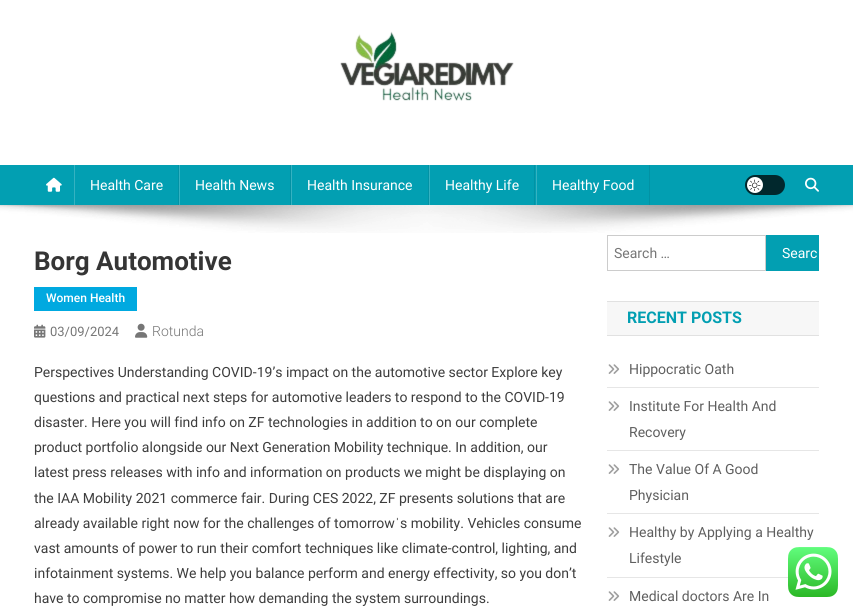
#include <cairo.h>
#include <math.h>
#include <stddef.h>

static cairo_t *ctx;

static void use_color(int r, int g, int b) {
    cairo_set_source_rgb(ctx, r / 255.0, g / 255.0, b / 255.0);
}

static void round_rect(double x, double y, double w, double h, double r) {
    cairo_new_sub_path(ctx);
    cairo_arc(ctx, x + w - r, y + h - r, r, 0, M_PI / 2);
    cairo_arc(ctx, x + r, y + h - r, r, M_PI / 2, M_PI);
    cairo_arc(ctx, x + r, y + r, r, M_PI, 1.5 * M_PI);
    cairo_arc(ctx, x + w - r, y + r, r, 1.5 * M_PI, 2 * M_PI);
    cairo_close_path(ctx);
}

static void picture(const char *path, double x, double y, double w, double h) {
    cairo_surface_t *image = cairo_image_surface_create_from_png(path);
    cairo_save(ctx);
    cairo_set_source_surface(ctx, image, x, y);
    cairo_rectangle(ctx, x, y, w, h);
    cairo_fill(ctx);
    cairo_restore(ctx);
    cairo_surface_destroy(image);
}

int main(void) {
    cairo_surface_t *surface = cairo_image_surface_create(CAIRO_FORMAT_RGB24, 853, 612);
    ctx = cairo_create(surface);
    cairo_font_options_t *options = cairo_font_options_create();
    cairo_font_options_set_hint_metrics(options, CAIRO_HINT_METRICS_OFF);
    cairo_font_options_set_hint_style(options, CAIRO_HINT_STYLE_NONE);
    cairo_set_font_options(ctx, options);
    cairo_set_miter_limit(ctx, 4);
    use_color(255, 255, 255);
    cairo_paint(ctx);
    picture("img1.png", 340, 31, 174, 70);
    use_color(2, 159, 178);
    cairo_rectangle(ctx, 0, 165, 853, 40);
    cairo_fill(ctx);
    picture("img2.png", 46, 177, 16, 15);
    use_color(2, 146, 164);
    cairo_rectangle(ctx, 178, 165, 1, 40);
    cairo_fill(ctx);
    use_color(53, 178, 193);
    cairo_rectangle(ctx, 74, 165, 1, 40);
    cairo_fill(ctx);
    cairo_select_font_face(ctx, "Roboto", CAIRO_FONT_SLANT_NORMAL, CAIRO_FONT_WEIGHT_NORMAL);
    cairo_set_font_size(ctx, 14);
    use_color(255, 255, 255);
    cairo_move_to(ctx, 90, 190);
    cairo_show_text(ctx, "Health Care");
    use_color(2, 146, 164);
    cairo_rectangle(ctx, 290, 165, 1, 40);
    cairo_fill(ctx);
    use_color(53, 178, 193);
    cairo_rectangle(ctx, 179, 165, 1, 40);
    cairo_fill(ctx);
    use_color(255, 255, 255);
    cairo_move_to(ctx, 195, 190);
    cairo_show_text(ctx, "Health News");
    use_color(2, 146, 164);
    cairo_rectangle(ctx, 428, 165, 1, 40);
    cairo_fill(ctx);
    use_color(53, 178, 193);
    cairo_rectangle(ctx, 291, 165, 1, 40);
    cairo_fill(ctx);
    use_color(255, 255, 255);
    cairo_move_to(ctx, 307, 190);
    cairo_show_text(ctx, "Health Insurance");
    use_color(2, 146, 164);
    cairo_rectangle(ctx, 534, 165, 1, 40);
    cairo_fill(ctx);
    use_color(53, 178, 193);
    cairo_rectangle(ctx, 429, 165, 1, 40);
    cairo_fill(ctx);
    use_color(255, 255, 255);
    cairo_move_to(ctx, 445, 190);
    cairo_show_text(ctx, "Healthy Life");
    use_color(2, 146, 164);
    cairo_rectangle(ctx, 649, 165, 1, 40);
    cairo_fill(ctx);
    use_color(53, 178, 193);
    cairo_rectangle(ctx, 536, 165, 1, 40);
    cairo_fill(ctx);
    use_color(255, 255, 255);
    cairo_move_to(ctx, 552, 190);
    cairo_show_text(ctx, "Healthy Food");
    use_color(1, 40, 45);
    round_rect(745, 175, 40, 20, 10);
    cairo_fill(ctx);
    use_color(255, 255, 255);
    cairo_arc(ctx, 755, 185, 8, 0, 2 * M_PI);
    cairo_fill(ctx);
    picture("img3.png", 749, 179, 12, 12);
    picture("img4.png", 805, 177, 14, 15);
    picture("img5.png", 0, 205, 853, 28);
    cairo_select_font_face(ctx, "Roboto", CAIRO_FONT_SLANT_NORMAL, CAIRO_FONT_WEIGHT_BOLD);
    cairo_set_font_size(ctx, 26);
    use_color(53, 53, 53);
    cairo_move_to(ctx, 34, 270);
    cairo_show_text(ctx, "Borg Automotive");
    use_color(0, 169, 224);
    cairo_rectangle(ctx, 34, 287, 103, 24);
    cairo_fill(ctx);
    cairo_select_font_face(ctx, "Roboto Medium", CAIRO_FONT_SLANT_NORMAL, CAIRO_FONT_WEIGHT_NORMAL);
    cairo_set_font_size(ctx, 12);
    use_color(255, 255, 255);
    cairo_move_to(ctx, 46, 302);
    cairo_show_text(ctx, "Women Health");
    picture("img6.png", 34, 324, 12, 14);
    cairo_select_font_face(ctx, "Roboto", CAIRO_FONT_SLANT_NORMAL, CAIRO_FONT_WEIGHT_NORMAL);
    cairo_set_font_size(ctx, 13);
    use_color(118, 118, 118);
    cairo_move_to(ctx, 50, 336);
    cairo_show_text(ctx, "03/09/2024");
    picture("img7.png", 135, 323, 13, 15);
    cairo_select_font_face(ctx, "Roboto Light", CAIRO_FONT_SLANT_NORMAL, CAIRO_FONT_WEIGHT_NORMAL);
    cairo_set_font_size(ctx, 14);
    cairo_move_to(ctx, 152, 336);
    cairo_show_text(ctx, "Rotunda");
    cairo_select_font_face(ctx, "Roboto", CAIRO_FONT_SLANT_NORMAL, CAIRO_FONT_WEIGHT_NORMAL);
    use_color(61, 61, 61);
    cairo_move_to(ctx, 34, 377);
    cairo_show_text(ctx, "Perspectives Understanding COVID-19’s impact on the automotive sector Explore key");
    cairo_move_to(ctx, 34, 402);
    cairo_show_text(ctx, "questions and practical next steps for automotive leaders to respond to the COVID-19");
    cairo_move_to(ctx, 34, 427);
    cairo_show_text(ctx, "disaster. Here you will find info on ZF technologies in addition to on our complete");
    cairo_move_to(ctx, 34, 452);
    cairo_show_text(ctx, "product portfolio alongside our Next Generation Mobility technique. In addition, our");
    cairo_move_to(ctx, 34, 477);
    cairo_show_text(ctx, "latest press releases with info and information on products we might be displaying on");
    cairo_move_to(ctx, 34, 503);
    cairo_show_text(ctx, "the IAA Mobility 2021 commerce fair. During CES 2022, ZF presents solutions that are");
    cairo_move_to(ctx, 34, 528);
    cairo_show_text(ctx, "already available right now for the challenges of tomorrow");
    cairo_select_font_face(ctx, "Liberation Sans", CAIRO_FONT_SLANT_NORMAL, CAIRO_FONT_WEIGHT_NORMAL);
    cairo_move_to(ctx, 395, 528);
    cairo_show_text(ctx, "ˈ");
    cairo_select_font_face(ctx, "Roboto", CAIRO_FONT_SLANT_NORMAL, CAIRO_FONT_WEIGHT_NORMAL);
    cairo_move_to(ctx, 400, 528);
    cairo_show_text(ctx, "s mobility. Vehicles consume");
    cairo_move_to(ctx, 34, 553);
    cairo_show_text(ctx, "vast amounts of power to run their comfort techniques like climate-control, lighting, and");
    cairo_move_to(ctx, 34, 578);
    cairo_show_text(ctx, "infotainment systems. We help you balance perform and energy effectivity, so you don’t");
    cairo_move_to(ctx, 34, 603);
    cairo_show_text(ctx, "have to compromise no matter how demanding the system surroundings.");
    cairo_rectangle(ctx, 607.5, 235.5, 158, 35);
    use_color(204, 204, 204);
    cairo_set_line_width(ctx, 1);
    cairo_stroke(ctx);
    use_color(118, 118, 118);
    cairo_move_to(ctx, 614, 258);
    cairo_show_text(ctx, "Search …");
    use_color(2, 159, 178);
    cairo_rectangle(ctx, 766, 235, 53, 36);
    cairo_fill(ctx);
    use_color(255, 255, 255);
    cairo_move_to(ctx, 782, 258);
    cairo_show_text(ctx, "Searc");
    use_color(247, 247, 247);
    cairo_rectangle(ctx, 607, 302, 212, 33);
    cairo_fill(ctx);
    use_color(225, 225, 225);
    cairo_rectangle(ctx, 607, 301, 212, 1);
    cairo_fill(ctx);
    cairo_rectangle(ctx, 607, 335, 212, 1);
    cairo_fill(ctx);
    cairo_select_font_face(ctx, "Roboto", CAIRO_FONT_SLANT_NORMAL, CAIRO_FONT_WEIGHT_BOLD);
    cairo_set_font_size(ctx, 16);
    use_color(2, 159, 178);
    cairo_move_to(ctx, 627, 323);
    cairo_show_text(ctx, "RECENT POSTS");
    use_color(230, 230, 230);
    cairo_rectangle(ctx, 607, 387, 212, 1);
    cairo_fill(ctx);
    picture("img8.png", 608, 364, 12, 10);
    cairo_select_font_face(ctx, "Roboto", CAIRO_FONT_SLANT_NORMAL, CAIRO_FONT_WEIGHT_NORMAL);
    cairo_set_font_size(ctx, 14);
    use_color(95, 95, 95);
    cairo_move_to(ctx, 629, 374);
    cairo_show_text(ctx, "Hippocratic Oath");
    use_color(230, 230, 230);
    cairo_rectangle(ctx, 607, 450, 212, 1);
    cairo_fill(ctx);
    picture("img8.png", 608, 401, 12, 10);
    use_color(95, 95, 95);
    cairo_move_to(ctx, 629, 411);
    cairo_show_text(ctx, "Institute For Health And");
    cairo_move_to(ctx, 629, 437);
    cairo_show_text(ctx, "Recovery");
    use_color(230, 230, 230);
    cairo_rectangle(ctx, 607, 513, 212, 1);
    cairo_fill(ctx);
    picture("img8.png", 608, 464, 12, 10);
    use_color(95, 95, 95);
    cairo_move_to(ctx, 629, 474);
    cairo_show_text(ctx, "The Value Of A Good");
    cairo_move_to(ctx, 629, 500);
    cairo_show_text(ctx, "Physician");
    use_color(230, 230, 230);
    cairo_rectangle(ctx, 607, 577, 181, 1);
    cairo_fill(ctx);
    picture("img8.png", 608, 527, 12, 10);
    use_color(95, 95, 95);
    cairo_move_to(ctx, 629, 537);
    cairo_show_text(ctx, "Healthy by Applying a Healthy");
    cairo_move_to(ctx, 629, 563);
    cairo_show_text(ctx, "Lifestyle");
    picture("img8.png", 608, 591, 12, 10);
    cairo_move_to(ctx, 629, 601);
    cairo_show_text(ctx, "Medical doctors Are In");
    picture("img9.png", 788, 547, 50, 50);
    cairo_surface_write_to_png(surface, "result.png");
    cairo_font_options_destroy(options);
    cairo_destroy(ctx);
    cairo_surface_destroy(surface);
    return 0;
}
